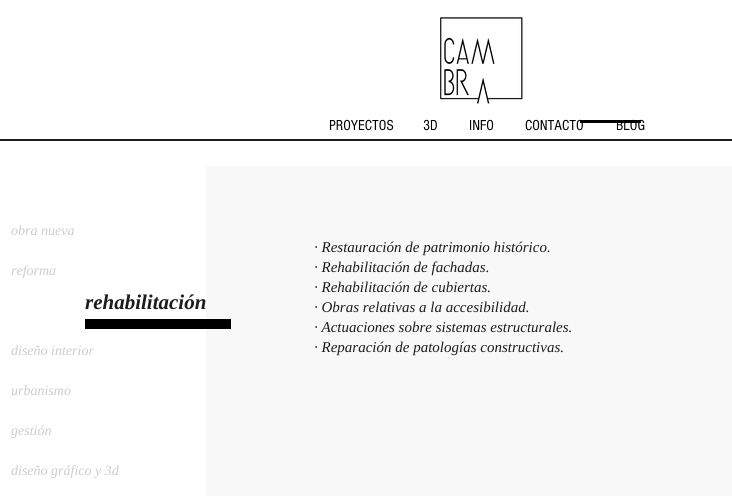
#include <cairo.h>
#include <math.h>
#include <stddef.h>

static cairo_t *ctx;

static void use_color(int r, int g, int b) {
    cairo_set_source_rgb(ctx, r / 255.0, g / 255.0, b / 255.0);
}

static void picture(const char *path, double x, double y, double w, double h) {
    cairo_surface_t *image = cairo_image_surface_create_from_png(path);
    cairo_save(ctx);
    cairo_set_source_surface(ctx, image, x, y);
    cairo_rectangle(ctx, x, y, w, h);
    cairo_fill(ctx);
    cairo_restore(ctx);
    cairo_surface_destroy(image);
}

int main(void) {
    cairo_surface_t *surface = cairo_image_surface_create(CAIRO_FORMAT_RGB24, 732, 496);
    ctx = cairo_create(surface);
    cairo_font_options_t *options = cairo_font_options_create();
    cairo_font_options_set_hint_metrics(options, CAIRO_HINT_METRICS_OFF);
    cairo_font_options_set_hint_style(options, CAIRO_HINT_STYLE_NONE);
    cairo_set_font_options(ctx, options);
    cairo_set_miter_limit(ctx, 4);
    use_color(255, 255, 255);
    cairo_paint(ctx);
    picture("img1.png", 440, 17, 83, 87);
    cairo_select_font_face(ctx, "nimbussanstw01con", CAIRO_FONT_SLANT_NORMAL, CAIRO_FONT_WEIGHT_NORMAL);
    cairo_set_font_size(ctx, 15);
    use_color(0, 0, 0);
    cairo_move_to(ctx, 329, 130);
    cairo_show_text(ctx, "PROYECTOS");
    cairo_move_to(ctx, 423, 130);
    cairo_show_text(ctx, "3D");
    use_color(28, 28, 28);
    cairo_rectangle(ctx, 0, 139, 732, 2);
    cairo_fill(ctx);
    use_color(0, 0, 0);
    cairo_move_to(ctx, 469, 130);
    cairo_show_text(ctx, "INFO");
    cairo_rectangle(ctx, 580, 120, 61, 3);
    cairo_fill(ctx);
    cairo_move_to(ctx, 525, 130);
    cairo_show_text(ctx, "CONTACTO");
    cairo_move_to(ctx, 616, 130);
    cairo_show_text(ctx, "BLOG");
    cairo_select_font_face(ctx, "Liberation Serif", CAIRO_FONT_SLANT_ITALIC, CAIRO_FONT_WEIGHT_NORMAL);
    cairo_set_font_size(ctx, 14);
    use_color(204, 204, 204);
    cairo_move_to(ctx, 11, 235);
    cairo_show_text(ctx, "obra nueva");
    use_color(248, 248, 248);
    cairo_rectangle(ctx, 206, 166, 526, 330);
    cairo_fill(ctx);
    use_color(204, 204, 204);
    cairo_move_to(ctx, 11, 275);
    cairo_show_text(ctx, "reforma");
    cairo_set_font_size(ctx, 15);
    use_color(28, 28, 28);
    cairo_move_to(ctx, 314, 252);
    cairo_show_text(ctx, "· Restauración de patrimonio histórico.");
    cairo_move_to(ctx, 314, 272);
    cairo_show_text(ctx, "· Rehabilitación de fachadas.");
    cairo_move_to(ctx, 314, 292);
    cairo_show_text(ctx, "· Rehabilitación de cubiertas.");
    cairo_move_to(ctx, 314, 312);
    cairo_show_text(ctx, "· Obras relativas a la accesibilidad.");
    cairo_move_to(ctx, 314, 332);
    cairo_show_text(ctx, "· Actuaciones sobre sistemas estructurales.");
    cairo_move_to(ctx, 314, 352);
    cairo_show_text(ctx, "· Reparación de patologías constructivas.");
    cairo_select_font_face(ctx, "Liberation Serif", CAIRO_FONT_SLANT_ITALIC, CAIRO_FONT_WEIGHT_BOLD);
    cairo_set_font_size(ctx, 21);
    cairo_move_to(ctx, 85, 309);
    cairo_show_text(ctx, "rehabilitación");
    use_color(0, 0, 0);
    cairo_rectangle(ctx, 85, 319, 146, 10);
    cairo_fill(ctx);
    cairo_select_font_face(ctx, "Liberation Serif", CAIRO_FONT_SLANT_ITALIC, CAIRO_FONT_WEIGHT_NORMAL);
    cairo_set_font_size(ctx, 14);
    use_color(204, 204, 204);
    cairo_move_to(ctx, 11, 355);
    cairo_show_text(ctx, "diseño interior");
    cairo_move_to(ctx, 11, 395);
    cairo_show_text(ctx, "urbanismo");
    cairo_move_to(ctx, 11, 435);
    cairo_show_text(ctx, "gestión");
    cairo_move_to(ctx, 11, 475);
    cairo_show_text(ctx, "diseño gráfico y 3d");
    cairo_surface_write_to_png(surface, "result.png");
    cairo_font_options_destroy(options);
    cairo_destroy(ctx);
    cairo_surface_destroy(surface);
    return 0;
}
